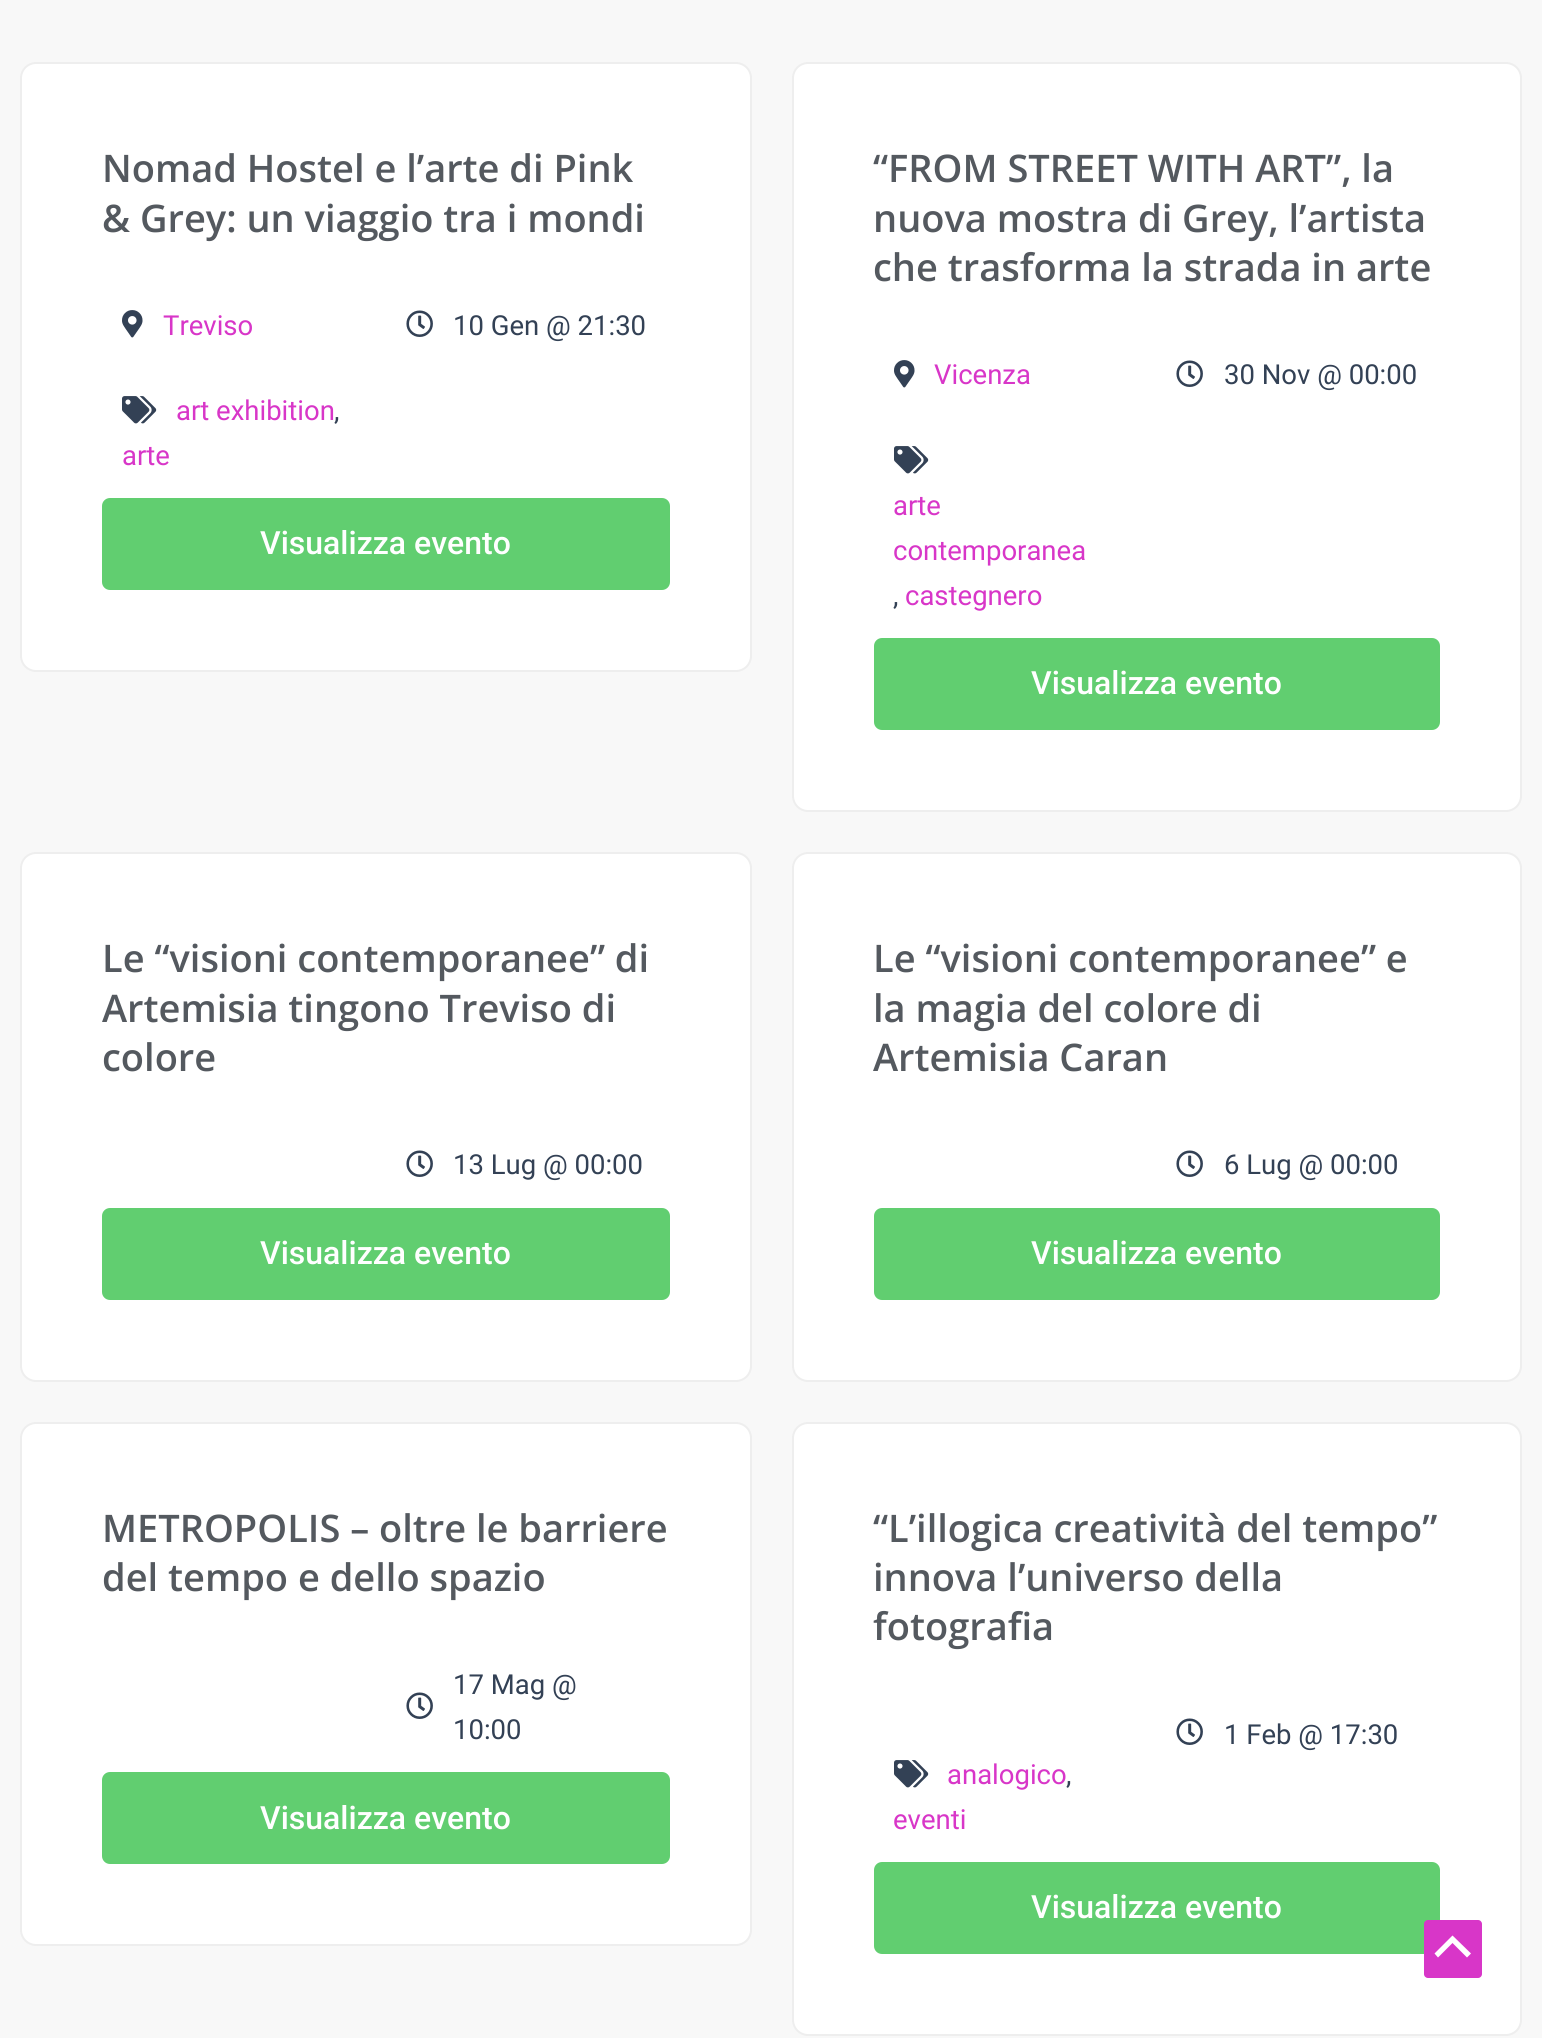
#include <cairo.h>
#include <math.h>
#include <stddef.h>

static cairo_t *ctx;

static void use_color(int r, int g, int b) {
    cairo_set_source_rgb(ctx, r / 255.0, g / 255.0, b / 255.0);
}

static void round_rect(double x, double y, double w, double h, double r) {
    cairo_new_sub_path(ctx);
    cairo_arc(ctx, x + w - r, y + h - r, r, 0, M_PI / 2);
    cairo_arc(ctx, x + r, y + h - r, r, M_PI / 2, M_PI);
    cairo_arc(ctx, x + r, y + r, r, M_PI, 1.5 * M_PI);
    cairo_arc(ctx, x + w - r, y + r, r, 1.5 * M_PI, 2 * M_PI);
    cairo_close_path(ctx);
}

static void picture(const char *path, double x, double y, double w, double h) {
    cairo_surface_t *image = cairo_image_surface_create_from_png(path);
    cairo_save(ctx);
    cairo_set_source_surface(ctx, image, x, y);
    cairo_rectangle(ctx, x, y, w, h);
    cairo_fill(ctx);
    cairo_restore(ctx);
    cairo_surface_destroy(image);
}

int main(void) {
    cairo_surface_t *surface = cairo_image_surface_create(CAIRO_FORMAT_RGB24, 1542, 2038);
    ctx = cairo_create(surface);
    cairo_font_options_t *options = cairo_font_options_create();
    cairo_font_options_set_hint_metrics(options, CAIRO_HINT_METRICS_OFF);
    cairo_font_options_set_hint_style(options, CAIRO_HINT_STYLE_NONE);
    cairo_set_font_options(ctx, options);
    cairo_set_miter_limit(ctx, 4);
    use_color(248, 248, 248);
    cairo_paint(ctx);
    use_color(255, 255, 255);
    round_rect(21, 63, 730, 608, 15);
    cairo_fill_preserve(ctx);
    use_color(238, 238, 238);
    cairo_stroke(ctx);
    cairo_select_font_face(ctx, "Open Sans SemiBold", CAIRO_FONT_SLANT_NORMAL, CAIRO_FONT_WEIGHT_NORMAL);
    cairo_set_font_size(ctx, 38);
    use_color(84, 89, 95);
    cairo_move_to(ctx, 102, 182);
    cairo_show_text(ctx, "Nomad Hostel e l’arte di Pink");
    cairo_move_to(ctx, 102, 232);
    cairo_show_text(ctx, "& Grey: un viaggio tra i mondi");
    picture("img1.png", 122, 310, 21, 28);
    cairo_select_font_face(ctx, "Roboto", CAIRO_FONT_SLANT_NORMAL, CAIRO_FONT_WEIGHT_NORMAL);
    cairo_set_font_size(ctx, 27.5);
    use_color(216, 54, 200);
    cairo_move_to(ctx, 163, 335);
    cairo_show_text(ctx, "Treviso");
    picture("img2.png", 122, 396, 35, 28);
    cairo_move_to(ctx, 176, 420);
    cairo_show_text(ctx, "art exhibition");
    use_color(51, 65, 85);
    cairo_move_to(ctx, 334, 420);
    cairo_show_text(ctx, ",");
    use_color(216, 54, 200);
    cairo_move_to(ctx, 122, 465);
    cairo_show_text(ctx, "arte");
    picture("img3.png", 406, 310, 27, 27);
    use_color(51, 65, 85);
    cairo_move_to(ctx, 453, 335);
    cairo_show_text(ctx, "10 Gen @ 21:30");
    use_color(97, 206, 112);
    round_rect(102, 498, 568, 92, 8);
    cairo_fill(ctx);
    cairo_select_font_face(ctx, "Roboto Medium", CAIRO_FONT_SLANT_NORMAL, CAIRO_FONT_WEIGHT_NORMAL);
    cairo_set_font_size(ctx, 32);
    use_color(255, 255, 255);
    cairo_move_to(ctx, 260, 554);
    cairo_show_text(ctx, "Visualizza evento");
    round_rect(793, 63, 728, 748, 15);
    cairo_fill_preserve(ctx);
    use_color(238, 238, 238);
    cairo_stroke(ctx);
    cairo_select_font_face(ctx, "Open Sans SemiBold", CAIRO_FONT_SLANT_NORMAL, CAIRO_FONT_WEIGHT_NORMAL);
    cairo_set_font_size(ctx, 38);
    use_color(84, 89, 95);
    cairo_move_to(ctx, 873, 182);
    cairo_show_text(ctx, "“FROM STREET WITH ART”, la");
    cairo_move_to(ctx, 873, 232);
    cairo_show_text(ctx, "nuova mostra di Grey, l’artista");
    cairo_move_to(ctx, 873, 281);
    cairo_show_text(ctx, "che trasforma la strada in arte");
    picture("img1.png", 894, 360, 21, 28);
    cairo_select_font_face(ctx, "Roboto", CAIRO_FONT_SLANT_NORMAL, CAIRO_FONT_WEIGHT_NORMAL);
    cairo_set_font_size(ctx, 27.5);
    use_color(216, 54, 200);
    cairo_move_to(ctx, 934, 384);
    cairo_show_text(ctx, "Vicenza");
    picture("img2.png", 894, 446, 35, 28);
    cairo_move_to(ctx, 893, 515);
    cairo_show_text(ctx, "arte");
    cairo_move_to(ctx, 893, 560);
    cairo_show_text(ctx, "contemporanea");
    use_color(51, 65, 85);
    cairo_move_to(ctx, 893, 605);
    cairo_show_text(ctx, ",");
    use_color(216, 54, 200);
    cairo_move_to(ctx, 905, 605);
    cairo_show_text(ctx, "castegnero");
    picture("img3.png", 1176, 360, 27, 27);
    use_color(51, 65, 85);
    cairo_move_to(ctx, 1224, 384);
    cairo_show_text(ctx, "30 Nov @ 00:00");
    use_color(97, 206, 112);
    round_rect(874, 638, 566, 92, 8);
    cairo_fill(ctx);
    cairo_select_font_face(ctx, "Roboto Medium", CAIRO_FONT_SLANT_NORMAL, CAIRO_FONT_WEIGHT_NORMAL);
    cairo_set_font_size(ctx, 32);
    use_color(255, 255, 255);
    cairo_move_to(ctx, 1031, 694);
    cairo_show_text(ctx, "Visualizza evento");
    round_rect(21, 853, 730, 528, 15);
    cairo_fill_preserve(ctx);
    use_color(238, 238, 238);
    cairo_stroke(ctx);
    cairo_select_font_face(ctx, "Open Sans SemiBold", CAIRO_FONT_SLANT_NORMAL, CAIRO_FONT_WEIGHT_NORMAL);
    cairo_set_font_size(ctx, 38);
    use_color(84, 89, 95);
    cairo_move_to(ctx, 102, 972);
    cairo_show_text(ctx, "Le “visioni contemporanee” di");
    cairo_move_to(ctx, 102, 1022);
    cairo_show_text(ctx, "Artemisia tingono Treviso di");
    cairo_move_to(ctx, 102, 1071);
    cairo_show_text(ctx, "colore");
    picture("img3.png", 406, 1150, 27, 27);
    cairo_select_font_face(ctx, "Roboto", CAIRO_FONT_SLANT_NORMAL, CAIRO_FONT_WEIGHT_NORMAL);
    cairo_set_font_size(ctx, 27.5);
    use_color(51, 65, 85);
    cairo_move_to(ctx, 453, 1174);
    cairo_show_text(ctx, "13 Lug @ 00:00");
    use_color(97, 206, 112);
    round_rect(102, 1208, 568, 92, 8);
    cairo_fill(ctx);
    cairo_select_font_face(ctx, "Roboto Medium", CAIRO_FONT_SLANT_NORMAL, CAIRO_FONT_WEIGHT_NORMAL);
    cairo_set_font_size(ctx, 32);
    use_color(255, 255, 255);
    cairo_move_to(ctx, 260, 1264);
    cairo_show_text(ctx, "Visualizza evento");
    round_rect(793, 853, 728, 528, 15);
    cairo_fill_preserve(ctx);
    use_color(238, 238, 238);
    cairo_stroke(ctx);
    cairo_select_font_face(ctx, "Open Sans SemiBold", CAIRO_FONT_SLANT_NORMAL, CAIRO_FONT_WEIGHT_NORMAL);
    cairo_set_font_size(ctx, 38);
    use_color(84, 89, 95);
    cairo_move_to(ctx, 873, 972);
    cairo_show_text(ctx, "Le “visioni contemporanee” e");
    cairo_move_to(ctx, 873, 1022);
    cairo_show_text(ctx, "la magia del colore di");
    cairo_move_to(ctx, 873, 1071);
    cairo_show_text(ctx, "Artemisia Caran");
    picture("img3.png", 1176, 1150, 27, 27);
    cairo_select_font_face(ctx, "Roboto", CAIRO_FONT_SLANT_NORMAL, CAIRO_FONT_WEIGHT_NORMAL);
    cairo_set_font_size(ctx, 27.5);
    use_color(51, 65, 85);
    cairo_move_to(ctx, 1224, 1174);
    cairo_show_text(ctx, "6 Lug @ 00:00");
    use_color(97, 206, 112);
    round_rect(874, 1208, 566, 92, 8);
    cairo_fill(ctx);
    cairo_select_font_face(ctx, "Roboto Medium", CAIRO_FONT_SLANT_NORMAL, CAIRO_FONT_WEIGHT_NORMAL);
    cairo_set_font_size(ctx, 32);
    use_color(255, 255, 255);
    cairo_move_to(ctx, 1031, 1264);
    cairo_show_text(ctx, "Visualizza evento");
    round_rect(21, 1423, 730, 522, 15);
    cairo_fill_preserve(ctx);
    use_color(238, 238, 238);
    cairo_stroke(ctx);
    cairo_select_font_face(ctx, "Open Sans SemiBold", CAIRO_FONT_SLANT_NORMAL, CAIRO_FONT_WEIGHT_NORMAL);
    cairo_set_font_size(ctx, 38);
    use_color(84, 89, 95);
    cairo_move_to(ctx, 102, 1542);
    cairo_show_text(ctx, "METROPOLIS – oltre le barriere");
    cairo_move_to(ctx, 102, 1591);
    cairo_show_text(ctx, "del tempo e dello spazio");
    picture("img3.png", 406, 1692, 27, 27);
    cairo_select_font_face(ctx, "Roboto", CAIRO_FONT_SLANT_NORMAL, CAIRO_FONT_WEIGHT_NORMAL);
    cairo_set_font_size(ctx, 27.5);
    use_color(51, 65, 85);
    cairo_move_to(ctx, 453, 1694);
    cairo_show_text(ctx, "17 Mag @");
    cairo_move_to(ctx, 453, 1739);
    cairo_show_text(ctx, "10:00");
    use_color(97, 206, 112);
    round_rect(102, 1772, 568, 92, 8);
    cairo_fill(ctx);
    cairo_select_font_face(ctx, "Roboto Medium", CAIRO_FONT_SLANT_NORMAL, CAIRO_FONT_WEIGHT_NORMAL);
    cairo_set_font_size(ctx, 32);
    use_color(255, 255, 255);
    cairo_move_to(ctx, 260, 1829);
    cairo_show_text(ctx, "Visualizza evento");
    round_rect(793, 1423, 728, 612, 15);
    cairo_fill_preserve(ctx);
    use_color(238, 238, 238);
    cairo_stroke(ctx);
    cairo_select_font_face(ctx, "Open Sans SemiBold", CAIRO_FONT_SLANT_NORMAL, CAIRO_FONT_WEIGHT_NORMAL);
    cairo_set_font_size(ctx, 38);
    use_color(84, 89, 95);
    cairo_move_to(ctx, 873, 1542);
    cairo_show_text(ctx, "“L’illogica creatività del tempo”");
    cairo_move_to(ctx, 873, 1591);
    cairo_show_text(ctx, "innova l’universo della");
    cairo_move_to(ctx, 873, 1640);
    cairo_show_text(ctx, "fotografia");
    picture("img3.png", 1176, 1718, 27, 27);
    cairo_select_font_face(ctx, "Roboto", CAIRO_FONT_SLANT_NORMAL, CAIRO_FONT_WEIGHT_NORMAL);
    cairo_set_font_size(ctx, 27.5);
    use_color(51, 65, 85);
    cairo_move_to(ctx, 1224, 1744);
    cairo_show_text(ctx, "1 Feb @ 17:30");
    picture("img2.png", 894, 1760, 35, 28);
    use_color(216, 54, 200);
    cairo_move_to(ctx, 947, 1784);
    cairo_show_text(ctx, "analogico");
    use_color(51, 65, 85);
    cairo_move_to(ctx, 1066, 1784);
    cairo_show_text(ctx, ",");
    use_color(216, 54, 200);
    cairo_move_to(ctx, 893, 1829);
    cairo_show_text(ctx, "eventi");
    use_color(97, 206, 112);
    round_rect(874, 1862, 566, 92, 8);
    cairo_fill(ctx);
    cairo_select_font_face(ctx, "Roboto Medium", CAIRO_FONT_SLANT_NORMAL, CAIRO_FONT_WEIGHT_NORMAL);
    cairo_set_font_size(ctx, 32);
    use_color(255, 255, 255);
    cairo_move_to(ctx, 1031, 1918);
    cairo_show_text(ctx, "Visualizza evento");
    use_color(216, 54, 200);
    round_rect(1424, 1920, 58, 58, 4);
    cairo_fill(ctx);
    use_color(255, 255, 255);
    cairo_new_path(ctx);
    cairo_move_to(ctx, 1471, 1953.5);
    cairo_line_to(ctx, 1452.5, 1935.5);
    cairo_line_to(ctx, 1434.5, 1953.5);
    cairo_line_to(ctx, 1438, 1957.5);
    cairo_line_to(ctx, 1452.5, 1943);
    cairo_line_to(ctx, 1467, 1957.5);
    cairo_close_path(ctx);
    cairo_fill(ctx);
    cairo_surface_write_to_png(surface, "result.png");
    cairo_font_options_destroy(options);
    cairo_destroy(ctx);
    cairo_surface_destroy(surface);
    return 0;
}
